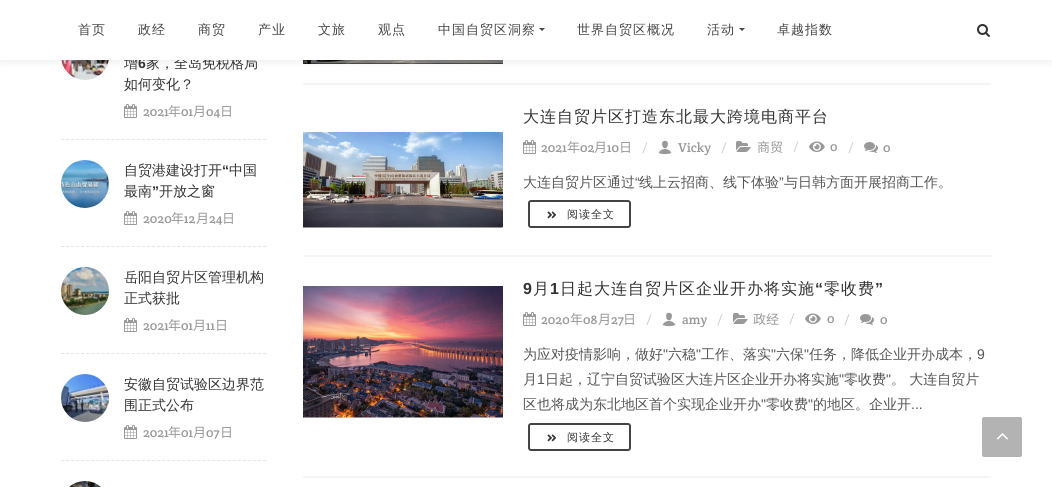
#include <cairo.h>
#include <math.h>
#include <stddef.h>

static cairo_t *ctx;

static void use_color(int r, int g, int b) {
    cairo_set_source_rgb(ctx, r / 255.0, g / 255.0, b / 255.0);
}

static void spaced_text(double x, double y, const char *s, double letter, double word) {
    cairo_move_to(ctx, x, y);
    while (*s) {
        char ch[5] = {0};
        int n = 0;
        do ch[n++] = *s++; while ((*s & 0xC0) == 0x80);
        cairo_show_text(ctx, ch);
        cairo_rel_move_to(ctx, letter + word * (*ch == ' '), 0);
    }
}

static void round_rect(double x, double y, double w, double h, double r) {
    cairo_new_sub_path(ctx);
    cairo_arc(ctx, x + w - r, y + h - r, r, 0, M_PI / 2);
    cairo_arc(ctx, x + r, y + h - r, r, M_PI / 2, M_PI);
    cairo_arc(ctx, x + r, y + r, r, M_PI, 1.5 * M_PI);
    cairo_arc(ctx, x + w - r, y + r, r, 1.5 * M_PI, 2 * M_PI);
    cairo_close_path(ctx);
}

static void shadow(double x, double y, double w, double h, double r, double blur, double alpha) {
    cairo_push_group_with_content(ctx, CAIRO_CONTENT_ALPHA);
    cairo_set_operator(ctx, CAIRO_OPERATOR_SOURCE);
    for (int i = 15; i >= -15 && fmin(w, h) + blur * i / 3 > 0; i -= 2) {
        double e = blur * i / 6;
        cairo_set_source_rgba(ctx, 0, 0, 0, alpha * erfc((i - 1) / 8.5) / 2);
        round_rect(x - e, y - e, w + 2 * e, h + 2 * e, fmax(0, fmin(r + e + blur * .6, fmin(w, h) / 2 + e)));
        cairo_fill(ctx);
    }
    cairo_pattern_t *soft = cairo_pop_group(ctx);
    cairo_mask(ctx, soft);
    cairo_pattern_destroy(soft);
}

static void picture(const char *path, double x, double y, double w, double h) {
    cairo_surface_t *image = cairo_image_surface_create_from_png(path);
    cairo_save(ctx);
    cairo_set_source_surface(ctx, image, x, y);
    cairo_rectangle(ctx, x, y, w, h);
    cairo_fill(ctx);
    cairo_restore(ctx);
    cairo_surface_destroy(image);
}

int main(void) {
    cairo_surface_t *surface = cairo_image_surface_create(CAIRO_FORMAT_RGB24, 1052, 487);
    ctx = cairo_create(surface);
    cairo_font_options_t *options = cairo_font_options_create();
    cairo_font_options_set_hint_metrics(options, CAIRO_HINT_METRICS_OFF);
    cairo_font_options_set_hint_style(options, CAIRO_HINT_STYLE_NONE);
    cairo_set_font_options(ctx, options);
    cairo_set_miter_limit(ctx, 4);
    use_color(255, 255, 255);
    cairo_paint(ctx);
    picture("img2.png", 61, 60, 48, 20);
    picture("img8.png", 303, 60, 200, 5);
    use_color(0, 0, 0);
    shadow(0, 0, 1052, 60, 0, 5, 0.1);
    cairo_select_font_face(ctx, "WenQuanYi Zen Hei Medium", CAIRO_FONT_SLANT_NORMAL, CAIRO_FONT_WEIGHT_NORMAL);
    cairo_set_font_size(ctx, 14);
    use_color(51, 51, 51);
    cairo_move_to(ctx, 124, 68);
    cairo_show_text(ctx, "增");
    cairo_select_font_face(ctx, "Liberation Sans", CAIRO_FONT_SLANT_NORMAL, CAIRO_FONT_WEIGHT_BOLD);
    cairo_move_to(ctx, 138, 68);
    cairo_show_text(ctx, "6");
    cairo_select_font_face(ctx, "WenQuanYi Zen Hei Medium", CAIRO_FONT_SLANT_NORMAL, CAIRO_FONT_WEIGHT_NORMAL);
    cairo_move_to(ctx, 146, 68);
    cairo_show_text(ctx, "家，全岛免税格局");
    use_color(255, 255, 255);
    cairo_rectangle(ctx, 0, 0, 1052, 60);
    cairo_fill(ctx);
    cairo_set_font_size(ctx, 13);
    use_color(68, 68, 68);
    spaced_text(78, 34, "首页", 1, 0);
    spaced_text(138, 34, "政经", 1, 0);
    spaced_text(198, 34, "商贸", 1, 0);
    spaced_text(258, 34, "产业", 1, 0);
    spaced_text(318, 34, "文旅", 1, 0);
    spaced_text(378, 34, "观点", 1, 0);
    spaced_text(438, 34, "中国自贸区洞察", 1, 0);
    cairo_new_path(ctx);
    cairo_move_to(ctx, 539, 28);
    cairo_line_to(ctx, 545, 28);
    cairo_line_to(ctx, 542, 31);
    cairo_close_path(ctx);
    cairo_fill(ctx);
    spaced_text(577, 34, "世界自贸区概况", 1, 0);
    spaced_text(707, 34, "活动", 1, 0);
    cairo_new_path(ctx);
    cairo_move_to(ctx, 739, 28);
    cairo_line_to(ctx, 745, 28);
    cairo_line_to(ctx, 742, 31);
    cairo_close_path(ctx);
    cairo_fill(ctx);
    spaced_text(777, 34, "卓越指数", 1, 0);
    picture("img1.png", 977, 24, 13, 13);
    cairo_set_font_size(ctx, 14);
    use_color(51, 51, 51);
    cairo_move_to(ctx, 124, 89);
    cairo_show_text(ctx, "如何变化？");
    picture("img3.png", 124, 104, 13, 14);
    cairo_select_font_face(ctx, "Crete Round", CAIRO_FONT_SLANT_NORMAL, CAIRO_FONT_WEIGHT_NORMAL);
    cairo_set_font_size(ctx, 13);
    use_color(153, 153, 153);
    cairo_move_to(ctx, 143, 116);
    cairo_show_text(ctx, "2021");
    cairo_select_font_face(ctx, "Noto Sans CJK SC", CAIRO_FONT_SLANT_NORMAL, CAIRO_FONT_WEIGHT_NORMAL);
    cairo_move_to(ctx, 168, 116);
    cairo_show_text(ctx, "年");
    cairo_select_font_face(ctx, "Crete Round", CAIRO_FONT_SLANT_NORMAL, CAIRO_FONT_WEIGHT_NORMAL);
    cairo_move_to(ctx, 181, 116);
    cairo_show_text(ctx, "01");
    cairo_select_font_face(ctx, "Noto Sans CJK SC", CAIRO_FONT_SLANT_NORMAL, CAIRO_FONT_WEIGHT_NORMAL);
    cairo_move_to(ctx, 193, 116);
    cairo_show_text(ctx, "月");
    cairo_select_font_face(ctx, "Crete Round", CAIRO_FONT_SLANT_NORMAL, CAIRO_FONT_WEIGHT_NORMAL);
    cairo_move_to(ctx, 206, 116);
    cairo_show_text(ctx, "04");
    cairo_select_font_face(ctx, "Noto Sans CJK SC", CAIRO_FONT_SLANT_NORMAL, CAIRO_FONT_WEIGHT_NORMAL);
    cairo_move_to(ctx, 220, 116);
    cairo_show_text(ctx, "日");
    cairo_new_path(ctx);
    cairo_move_to(ctx, 61, 139.5);
    cairo_line_to(ctx, 266, 139.5);
    use_color(229, 229, 229);
    cairo_set_line_width(ctx, 1);
    cairo_set_dash(ctx, (double[]){3, 2.05}, 2, 0);
    cairo_stroke(ctx);
    picture("img4.png", 61, 160, 48, 48);
    cairo_select_font_face(ctx, "WenQuanYi Zen Hei Medium", CAIRO_FONT_SLANT_NORMAL, CAIRO_FONT_WEIGHT_NORMAL);
    cairo_set_font_size(ctx, 14);
    use_color(51, 51, 51);
    cairo_move_to(ctx, 124, 175);
    cairo_show_text(ctx, "自贸港建设打开");
    cairo_select_font_face(ctx, "Liberation Sans", CAIRO_FONT_SLANT_NORMAL, CAIRO_FONT_WEIGHT_BOLD);
    cairo_move_to(ctx, 222, 175);
    cairo_show_text(ctx, "“");
    cairo_select_font_face(ctx, "WenQuanYi Zen Hei Medium", CAIRO_FONT_SLANT_NORMAL, CAIRO_FONT_WEIGHT_NORMAL);
    cairo_move_to(ctx, 229, 175);
    cairo_show_text(ctx, "中国");
    cairo_move_to(ctx, 124, 196);
    cairo_show_text(ctx, "最南");
    cairo_select_font_face(ctx, "Liberation Sans", CAIRO_FONT_SLANT_NORMAL, CAIRO_FONT_WEIGHT_BOLD);
    cairo_move_to(ctx, 152, 196);
    cairo_show_text(ctx, "”");
    cairo_select_font_face(ctx, "WenQuanYi Zen Hei Medium", CAIRO_FONT_SLANT_NORMAL, CAIRO_FONT_WEIGHT_NORMAL);
    cairo_move_to(ctx, 159, 196);
    cairo_show_text(ctx, "开放之窗");
    picture("img3.png", 124, 211, 13, 14);
    cairo_select_font_face(ctx, "Crete Round", CAIRO_FONT_SLANT_NORMAL, CAIRO_FONT_WEIGHT_NORMAL);
    cairo_set_font_size(ctx, 13);
    use_color(153, 153, 153);
    cairo_move_to(ctx, 143, 223);
    cairo_show_text(ctx, "2020");
    cairo_select_font_face(ctx, "Noto Sans CJK SC", CAIRO_FONT_SLANT_NORMAL, CAIRO_FONT_WEIGHT_NORMAL);
    cairo_move_to(ctx, 171, 223);
    cairo_show_text(ctx, "年");
    cairo_select_font_face(ctx, "Crete Round", CAIRO_FONT_SLANT_NORMAL, CAIRO_FONT_WEIGHT_NORMAL);
    cairo_move_to(ctx, 184, 223);
    cairo_show_text(ctx, "12");
    cairo_select_font_face(ctx, "Noto Sans CJK SC", CAIRO_FONT_SLANT_NORMAL, CAIRO_FONT_WEIGHT_NORMAL);
    cairo_move_to(ctx, 196, 223);
    cairo_show_text(ctx, "月");
    cairo_select_font_face(ctx, "Crete Round", CAIRO_FONT_SLANT_NORMAL, CAIRO_FONT_WEIGHT_NORMAL);
    cairo_move_to(ctx, 209, 223);
    cairo_show_text(ctx, "24");
    cairo_select_font_face(ctx, "Noto Sans CJK SC", CAIRO_FONT_SLANT_NORMAL, CAIRO_FONT_WEIGHT_NORMAL);
    cairo_move_to(ctx, 222, 223);
    cairo_show_text(ctx, "日");
    cairo_new_path(ctx);
    cairo_move_to(ctx, 61, 246.5);
    cairo_line_to(ctx, 266, 246.5);
    use_color(229, 229, 229);
    cairo_stroke(ctx);
    picture("img5.png", 61, 267, 48, 48);
    cairo_select_font_face(ctx, "WenQuanYi Zen Hei Medium", CAIRO_FONT_SLANT_NORMAL, CAIRO_FONT_WEIGHT_NORMAL);
    cairo_set_font_size(ctx, 14);
    use_color(51, 51, 51);
    cairo_move_to(ctx, 124, 282);
    cairo_show_text(ctx, "岳阳自贸片区管理机构");
    cairo_move_to(ctx, 124, 303);
    cairo_show_text(ctx, "正式获批");
    picture("img3.png", 124, 318, 13, 14);
    cairo_select_font_face(ctx, "Crete Round", CAIRO_FONT_SLANT_NORMAL, CAIRO_FONT_WEIGHT_NORMAL);
    cairo_set_font_size(ctx, 13);
    use_color(153, 153, 153);
    cairo_move_to(ctx, 143, 330);
    cairo_show_text(ctx, "2021");
    cairo_select_font_face(ctx, "Noto Sans CJK SC", CAIRO_FONT_SLANT_NORMAL, CAIRO_FONT_WEIGHT_NORMAL);
    cairo_move_to(ctx, 168, 330);
    cairo_show_text(ctx, "年");
    cairo_select_font_face(ctx, "Crete Round", CAIRO_FONT_SLANT_NORMAL, CAIRO_FONT_WEIGHT_NORMAL);
    cairo_move_to(ctx, 181, 330);
    cairo_show_text(ctx, "01");
    cairo_select_font_face(ctx, "Noto Sans CJK SC", CAIRO_FONT_SLANT_NORMAL, CAIRO_FONT_WEIGHT_NORMAL);
    cairo_move_to(ctx, 193, 330);
    cairo_show_text(ctx, "月");
    cairo_select_font_face(ctx, "Crete Round", CAIRO_FONT_SLANT_NORMAL, CAIRO_FONT_WEIGHT_NORMAL);
    cairo_move_to(ctx, 206, 330);
    cairo_show_text(ctx, "11");
    cairo_select_font_face(ctx, "Noto Sans CJK SC", CAIRO_FONT_SLANT_NORMAL, CAIRO_FONT_WEIGHT_NORMAL);
    cairo_move_to(ctx, 215, 330);
    cairo_show_text(ctx, "日");
    cairo_new_path(ctx);
    cairo_move_to(ctx, 61, 353.5);
    cairo_line_to(ctx, 266, 353.5);
    use_color(229, 229, 229);
    cairo_stroke(ctx);
    picture("img6.png", 61, 374, 48, 48);
    cairo_select_font_face(ctx, "WenQuanYi Zen Hei Medium", CAIRO_FONT_SLANT_NORMAL, CAIRO_FONT_WEIGHT_NORMAL);
    cairo_set_font_size(ctx, 14);
    use_color(51, 51, 51);
    cairo_move_to(ctx, 124, 389);
    cairo_show_text(ctx, "安徽自贸试验区边界范");
    cairo_move_to(ctx, 124, 410);
    cairo_show_text(ctx, "围正式公布");
    picture("img3.png", 124, 425, 13, 14);
    cairo_select_font_face(ctx, "Crete Round", CAIRO_FONT_SLANT_NORMAL, CAIRO_FONT_WEIGHT_NORMAL);
    cairo_set_font_size(ctx, 13);
    use_color(153, 153, 153);
    cairo_move_to(ctx, 143, 437);
    cairo_show_text(ctx, "2021");
    cairo_select_font_face(ctx, "Noto Sans CJK SC", CAIRO_FONT_SLANT_NORMAL, CAIRO_FONT_WEIGHT_NORMAL);
    cairo_move_to(ctx, 168, 437);
    cairo_show_text(ctx, "年");
    cairo_select_font_face(ctx, "Crete Round", CAIRO_FONT_SLANT_NORMAL, CAIRO_FONT_WEIGHT_NORMAL);
    cairo_move_to(ctx, 181, 437);
    cairo_show_text(ctx, "01");
    cairo_select_font_face(ctx, "Noto Sans CJK SC", CAIRO_FONT_SLANT_NORMAL, CAIRO_FONT_WEIGHT_NORMAL);
    cairo_move_to(ctx, 193, 437);
    cairo_show_text(ctx, "月");
    cairo_select_font_face(ctx, "Crete Round", CAIRO_FONT_SLANT_NORMAL, CAIRO_FONT_WEIGHT_NORMAL);
    cairo_move_to(ctx, 206, 437);
    cairo_show_text(ctx, "07");
    cairo_select_font_face(ctx, "Noto Sans CJK SC", CAIRO_FONT_SLANT_NORMAL, CAIRO_FONT_WEIGHT_NORMAL);
    cairo_move_to(ctx, 220, 437);
    cairo_show_text(ctx, "日");
    cairo_new_path(ctx);
    cairo_move_to(ctx, 61, 460.5);
    cairo_line_to(ctx, 266, 460.5);
    use_color(229, 229, 229);
    cairo_stroke(ctx);
    picture("img7.png", 69, 481, 32, 6);
    use_color(245, 245, 245);
    cairo_rectangle(ctx, 303, 83, 688, 2);
    cairo_fill(ctx);
    picture("img9.png", 303, 132, 200, 96);
    cairo_select_font_face(ctx, "WenQuanYi Zen Hei Medium", CAIRO_FONT_SLANT_NORMAL, CAIRO_FONT_WEIGHT_NORMAL);
    cairo_set_font_size(ctx, 16);
    use_color(51, 51, 51);
    spaced_text(523, 122, "大连自贸片区打造东北最大跨境电商平台", 1, 0);
    picture("img3.png", 523, 140, 13, 14);
    cairo_select_font_face(ctx, "Crete Round", CAIRO_FONT_SLANT_NORMAL, CAIRO_FONT_WEIGHT_NORMAL);
    cairo_set_font_size(ctx, 13);
    use_color(153, 153, 153);
    cairo_move_to(ctx, 541, 152);
    cairo_show_text(ctx, "2021");
    cairo_select_font_face(ctx, "Noto Sans CJK SC", CAIRO_FONT_SLANT_NORMAL, CAIRO_FONT_WEIGHT_NORMAL);
    cairo_move_to(ctx, 567, 152);
    cairo_show_text(ctx, "年");
    cairo_select_font_face(ctx, "Crete Round", CAIRO_FONT_SLANT_NORMAL, CAIRO_FONT_WEIGHT_NORMAL);
    cairo_move_to(ctx, 580, 152);
    cairo_show_text(ctx, "02");
    cairo_select_font_face(ctx, "Noto Sans CJK SC", CAIRO_FONT_SLANT_NORMAL, CAIRO_FONT_WEIGHT_NORMAL);
    cairo_move_to(ctx, 594, 152);
    cairo_show_text(ctx, "月");
    cairo_select_font_face(ctx, "Crete Round", CAIRO_FONT_SLANT_NORMAL, CAIRO_FONT_WEIGHT_NORMAL);
    cairo_move_to(ctx, 607, 152);
    cairo_show_text(ctx, "10");
    cairo_select_font_face(ctx, "Noto Sans CJK SC", CAIRO_FONT_SLANT_NORMAL, CAIRO_FONT_WEIGHT_NORMAL);
    cairo_move_to(ctx, 619, 152);
    cairo_show_text(ctx, "日");
    cairo_select_font_face(ctx, "Crete Round", CAIRO_FONT_SLANT_NORMAL, CAIRO_FONT_WEIGHT_NORMAL);
    use_color(204, 204, 204);
    cairo_move_to(ctx, 642, 152);
    cairo_show_text(ctx, "/");
    picture("img10.png", 658, 140, 14, 15);
    use_color(153, 153, 153);
    cairo_move_to(ctx, 678, 152);
    cairo_show_text(ctx, "Vicky");
    use_color(204, 204, 204);
    cairo_move_to(ctx, 721, 152);
    cairo_show_text(ctx, "/");
    picture("img11.png", 736, 141, 15, 11);
    cairo_select_font_face(ctx, "Noto Sans CJK SC", CAIRO_FONT_SLANT_NORMAL, CAIRO_FONT_WEIGHT_NORMAL);
    use_color(153, 153, 153);
    cairo_move_to(ctx, 757, 152);
    cairo_show_text(ctx, "商贸");
    cairo_select_font_face(ctx, "Crete Round", CAIRO_FONT_SLANT_NORMAL, CAIRO_FONT_WEIGHT_NORMAL);
    use_color(204, 204, 204);
    cairo_move_to(ctx, 793, 151);
    cairo_show_text(ctx, "/");
    picture("img12.png", 809, 141, 16, 11);
    use_color(153, 153, 153);
    cairo_move_to(ctx, 830, 151);
    cairo_show_text(ctx, "0");
    use_color(204, 204, 204);
    cairo_move_to(ctx, 848, 152);
    cairo_show_text(ctx, "/");
    picture("img13.png", 864, 142, 14, 11);
    use_color(153, 153, 153);
    cairo_move_to(ctx, 883, 152);
    cairo_show_text(ctx, "0");
    cairo_select_font_face(ctx, "WenQuanYi Zen Hei Medium", CAIRO_FONT_SLANT_NORMAL, CAIRO_FONT_WEIGHT_NORMAL);
    cairo_set_font_size(ctx, 14);
    use_color(85, 85, 85);
    cairo_move_to(ctx, 523, 187);
    cairo_show_text(ctx, "大连自贸片区通过");
    cairo_select_font_face(ctx, "Liberation Sans", CAIRO_FONT_SLANT_NORMAL, CAIRO_FONT_WEIGHT_NORMAL);
    cairo_move_to(ctx, 635, 187);
    cairo_show_text(ctx, "“");
    cairo_select_font_face(ctx, "WenQuanYi Zen Hei Medium", CAIRO_FONT_SLANT_NORMAL, CAIRO_FONT_WEIGHT_NORMAL);
    cairo_move_to(ctx, 639, 187);
    cairo_show_text(ctx, "线上云招商、线下体验");
    cairo_select_font_face(ctx, "Liberation Sans", CAIRO_FONT_SLANT_NORMAL, CAIRO_FONT_WEIGHT_NORMAL);
    cairo_move_to(ctx, 779, 187);
    cairo_show_text(ctx, "”");
    cairo_select_font_face(ctx, "WenQuanYi Zen Hei Medium", CAIRO_FONT_SLANT_NORMAL, CAIRO_FONT_WEIGHT_NORMAL);
    cairo_move_to(ctx, 784, 187);
    cairo_show_text(ctx, "与日韩方面开展招商工作。");
    round_rect(529, 201, 101, 26, 2);
    use_color(68, 68, 68);
    cairo_set_line_width(ctx, 2);
    cairo_set_dash(ctx, NULL, 0, 0);
    cairo_stroke(ctx);
    picture("img14.png", 547, 211, 9, 8);
    cairo_set_font_size(ctx, 11);
    use_color(51, 51, 51);
    spaced_text(567, 218, "阅读全文", 1, 0);
    use_color(245, 245, 245);
    cairo_rectangle(ctx, 303, 255, 688, 2);
    cairo_fill(ctx);
    picture("img15.png", 303, 286, 200, 135);
    cairo_select_font_face(ctx, "Liberation Sans", CAIRO_FONT_SLANT_NORMAL, CAIRO_FONT_WEIGHT_BOLD);
    cairo_set_font_size(ctx, 16);
    use_color(51, 51, 51);
    spaced_text(523, 294, "9", 1, 0);
    cairo_select_font_face(ctx, "WenQuanYi Zen Hei Medium", CAIRO_FONT_SLANT_NORMAL, CAIRO_FONT_WEIGHT_NORMAL);
    spaced_text(533, 294, "月", 1, 0);
    cairo_select_font_face(ctx, "Liberation Sans", CAIRO_FONT_SLANT_NORMAL, CAIRO_FONT_WEIGHT_BOLD);
    spaced_text(550, 294, "1", 1, 0);
    cairo_select_font_face(ctx, "WenQuanYi Zen Hei Medium", CAIRO_FONT_SLANT_NORMAL, CAIRO_FONT_WEIGHT_NORMAL);
    spaced_text(560, 294, "日起大连自贸片区企业开办将实施", 1, 0);
    cairo_select_font_face(ctx, "Liberation Sans", CAIRO_FONT_SLANT_NORMAL, CAIRO_FONT_WEIGHT_BOLD);
    spaced_text(815, 294, "“", 1, 0);
    cairo_select_font_face(ctx, "WenQuanYi Zen Hei Medium", CAIRO_FONT_SLANT_NORMAL, CAIRO_FONT_WEIGHT_NORMAL);
    spaced_text(824, 294, "零收费", 1, 0);
    cairo_select_font_face(ctx, "Liberation Sans", CAIRO_FONT_SLANT_NORMAL, CAIRO_FONT_WEIGHT_BOLD);
    spaced_text(875, 294, "”", 1, 0);
    picture("img3.png", 523, 312, 13, 14);
    cairo_select_font_face(ctx, "Crete Round", CAIRO_FONT_SLANT_NORMAL, CAIRO_FONT_WEIGHT_NORMAL);
    cairo_set_font_size(ctx, 13);
    use_color(153, 153, 153);
    cairo_move_to(ctx, 541, 324);
    cairo_show_text(ctx, "2020");
    cairo_select_font_face(ctx, "Noto Sans CJK SC", CAIRO_FONT_SLANT_NORMAL, CAIRO_FONT_WEIGHT_NORMAL);
    cairo_move_to(ctx, 570, 324);
    cairo_show_text(ctx, "年");
    cairo_select_font_face(ctx, "Crete Round", CAIRO_FONT_SLANT_NORMAL, CAIRO_FONT_WEIGHT_NORMAL);
    cairo_move_to(ctx, 583, 324);
    cairo_show_text(ctx, "08");
    cairo_select_font_face(ctx, "Noto Sans CJK SC", CAIRO_FONT_SLANT_NORMAL, CAIRO_FONT_WEIGHT_NORMAL);
    cairo_move_to(ctx, 598, 324);
    cairo_show_text(ctx, "月");
    cairo_select_font_face(ctx, "Crete Round", CAIRO_FONT_SLANT_NORMAL, CAIRO_FONT_WEIGHT_NORMAL);
    cairo_move_to(ctx, 611, 324);
    cairo_show_text(ctx, "27");
    cairo_select_font_face(ctx, "Noto Sans CJK SC", CAIRO_FONT_SLANT_NORMAL, CAIRO_FONT_WEIGHT_NORMAL);
    cairo_move_to(ctx, 623, 324);
    cairo_show_text(ctx, "日");
    cairo_select_font_face(ctx, "Crete Round", CAIRO_FONT_SLANT_NORMAL, CAIRO_FONT_WEIGHT_NORMAL);
    use_color(204, 204, 204);
    cairo_move_to(ctx, 646, 324);
    cairo_show_text(ctx, "/");
    picture("img10.png", 662, 312, 14, 15);
    use_color(153, 153, 153);
    cairo_move_to(ctx, 682, 324);
    cairo_show_text(ctx, "amy");
    use_color(204, 204, 204);
    cairo_move_to(ctx, 717, 324);
    cairo_show_text(ctx, "/");
    picture("img11.png", 733, 313, 15, 11);
    cairo_select_font_face(ctx, "Noto Sans CJK SC", CAIRO_FONT_SLANT_NORMAL, CAIRO_FONT_WEIGHT_NORMAL);
    use_color(153, 153, 153);
    cairo_move_to(ctx, 753, 324);
    cairo_show_text(ctx, "政经");
    cairo_select_font_face(ctx, "Crete Round", CAIRO_FONT_SLANT_NORMAL, CAIRO_FONT_WEIGHT_NORMAL);
    use_color(204, 204, 204);
    cairo_move_to(ctx, 789, 323);
    cairo_show_text(ctx, "/");
    picture("img12.png", 805, 313, 16, 11);
    use_color(153, 153, 153);
    cairo_move_to(ctx, 827, 323);
    cairo_show_text(ctx, "0");
    use_color(204, 204, 204);
    cairo_move_to(ctx, 844, 324);
    cairo_show_text(ctx, "/");
    picture("img13.png", 860, 314, 14, 11);
    use_color(153, 153, 153);
    cairo_move_to(ctx, 880, 324);
    cairo_show_text(ctx, "0");
    cairo_select_font_face(ctx, "WenQuanYi Zen Hei Medium", CAIRO_FONT_SLANT_NORMAL, CAIRO_FONT_WEIGHT_NORMAL);
    cairo_set_font_size(ctx, 14);
    use_color(85, 85, 85);
    cairo_move_to(ctx, 523, 359);
    cairo_show_text(ctx, "为应对疫情影响，做好");
    cairo_select_font_face(ctx, "Liberation Sans", CAIRO_FONT_SLANT_NORMAL, CAIRO_FONT_WEIGHT_NORMAL);
    cairo_move_to(ctx, 663, 359);
    cairo_show_text(ctx, "\"");
    cairo_select_font_face(ctx, "WenQuanYi Zen Hei Medium", CAIRO_FONT_SLANT_NORMAL, CAIRO_FONT_WEIGHT_NORMAL);
    cairo_move_to(ctx, 668, 359);
    cairo_show_text(ctx, "六稳");
    cairo_select_font_face(ctx, "Liberation Sans", CAIRO_FONT_SLANT_NORMAL, CAIRO_FONT_WEIGHT_NORMAL);
    cairo_move_to(ctx, 696, 359);
    cairo_show_text(ctx, "\"");
    cairo_select_font_face(ctx, "WenQuanYi Zen Hei Medium", CAIRO_FONT_SLANT_NORMAL, CAIRO_FONT_WEIGHT_NORMAL);
    cairo_move_to(ctx, 701, 359);
    cairo_show_text(ctx, "工作、落实");
    cairo_select_font_face(ctx, "Liberation Sans", CAIRO_FONT_SLANT_NORMAL, CAIRO_FONT_WEIGHT_NORMAL);
    cairo_move_to(ctx, 771, 359);
    cairo_show_text(ctx, "\"");
    cairo_select_font_face(ctx, "WenQuanYi Zen Hei Medium", CAIRO_FONT_SLANT_NORMAL, CAIRO_FONT_WEIGHT_NORMAL);
    cairo_move_to(ctx, 776, 359);
    cairo_show_text(ctx, "六保");
    cairo_select_font_face(ctx, "Liberation Sans", CAIRO_FONT_SLANT_NORMAL, CAIRO_FONT_WEIGHT_NORMAL);
    cairo_move_to(ctx, 804, 359);
    cairo_show_text(ctx, "\"");
    cairo_select_font_face(ctx, "WenQuanYi Zen Hei Medium", CAIRO_FONT_SLANT_NORMAL, CAIRO_FONT_WEIGHT_NORMAL);
    cairo_move_to(ctx, 809, 359);
    cairo_show_text(ctx, "任务，降低企业开办成本，");
    cairo_select_font_face(ctx, "Liberation Sans", CAIRO_FONT_SLANT_NORMAL, CAIRO_FONT_WEIGHT_NORMAL);
    cairo_move_to(ctx, 977, 359);
    cairo_show_text(ctx, "9");
    cairo_select_font_face(ctx, "WenQuanYi Zen Hei Medium", CAIRO_FONT_SLANT_NORMAL, CAIRO_FONT_WEIGHT_NORMAL);
    cairo_move_to(ctx, 523, 384);
    cairo_show_text(ctx, "月");
    cairo_select_font_face(ctx, "Liberation Sans", CAIRO_FONT_SLANT_NORMAL, CAIRO_FONT_WEIGHT_NORMAL);
    cairo_move_to(ctx, 537, 384);
    cairo_show_text(ctx, "1");
    cairo_select_font_face(ctx, "WenQuanYi Zen Hei Medium", CAIRO_FONT_SLANT_NORMAL, CAIRO_FONT_WEIGHT_NORMAL);
    cairo_move_to(ctx, 545, 384);
    cairo_show_text(ctx, "日起，辽宁自贸试验区大连片区企业开办将实施");
    cairo_select_font_face(ctx, "Liberation Sans", CAIRO_FONT_SLANT_NORMAL, CAIRO_FONT_WEIGHT_NORMAL);
    cairo_move_to(ctx, 839, 384);
    cairo_show_text(ctx, "\"");
    cairo_select_font_face(ctx, "WenQuanYi Zen Hei Medium", CAIRO_FONT_SLANT_NORMAL, CAIRO_FONT_WEIGHT_NORMAL);
    cairo_move_to(ctx, 844, 384);
    cairo_show_text(ctx, "零收费");
    cairo_select_font_face(ctx, "Liberation Sans", CAIRO_FONT_SLANT_NORMAL, CAIRO_FONT_WEIGHT_NORMAL);
    cairo_move_to(ctx, 886, 384);
    cairo_show_text(ctx, "\"");
    cairo_select_font_face(ctx, "WenQuanYi Zen Hei Medium", CAIRO_FONT_SLANT_NORMAL, CAIRO_FONT_WEIGHT_NORMAL);
    cairo_move_to(ctx, 891, 384);
    cairo_show_text(ctx, "。 大连自贸片");
    cairo_move_to(ctx, 523, 409);
    cairo_show_text(ctx, "区也将成为东北地区首个实现企业开办");
    cairo_select_font_face(ctx, "Liberation Sans", CAIRO_FONT_SLANT_NORMAL, CAIRO_FONT_WEIGHT_NORMAL);
    cairo_move_to(ctx, 761, 409);
    cairo_show_text(ctx, "\"");
    cairo_select_font_face(ctx, "WenQuanYi Zen Hei Medium", CAIRO_FONT_SLANT_NORMAL, CAIRO_FONT_WEIGHT_NORMAL);
    cairo_move_to(ctx, 766, 409);
    cairo_show_text(ctx, "零收费");
    cairo_select_font_face(ctx, "Liberation Sans", CAIRO_FONT_SLANT_NORMAL, CAIRO_FONT_WEIGHT_NORMAL);
    cairo_move_to(ctx, 808, 409);
    cairo_show_text(ctx, "\"");
    cairo_select_font_face(ctx, "WenQuanYi Zen Hei Medium", CAIRO_FONT_SLANT_NORMAL, CAIRO_FONT_WEIGHT_NORMAL);
    cairo_move_to(ctx, 813, 409);
    cairo_show_text(ctx, "的地区。企业开");
    cairo_select_font_face(ctx, "Liberation Sans", CAIRO_FONT_SLANT_NORMAL, CAIRO_FONT_WEIGHT_NORMAL);
    cairo_move_to(ctx, 911, 409);
    cairo_show_text(ctx, "...");
    round_rect(529, 424, 101, 26, 2);
    use_color(68, 68, 68);
    cairo_stroke(ctx);
    picture("img14.png", 547, 434, 9, 8);
    cairo_select_font_face(ctx, "WenQuanYi Zen Hei Medium", CAIRO_FONT_SLANT_NORMAL, CAIRO_FONT_WEIGHT_NORMAL);
    cairo_set_font_size(ctx, 11);
    use_color(51, 51, 51);
    spaced_text(567, 441, "阅读全文", 1, 0);
    use_color(245, 245, 245);
    cairo_rectangle(ctx, 303, 476, 688, 2);
    cairo_fill(ctx);
    use_color(179, 179, 179);
    round_rect(982, 417, 40, 40, 2);
    cairo_fill(ctx);
    picture("img16.png", 997, 433, 11, 7);
    cairo_surface_write_to_png(surface, "result.png");
    cairo_font_options_destroy(options);
    cairo_destroy(ctx);
    cairo_surface_destroy(surface);
    return 0;
}
